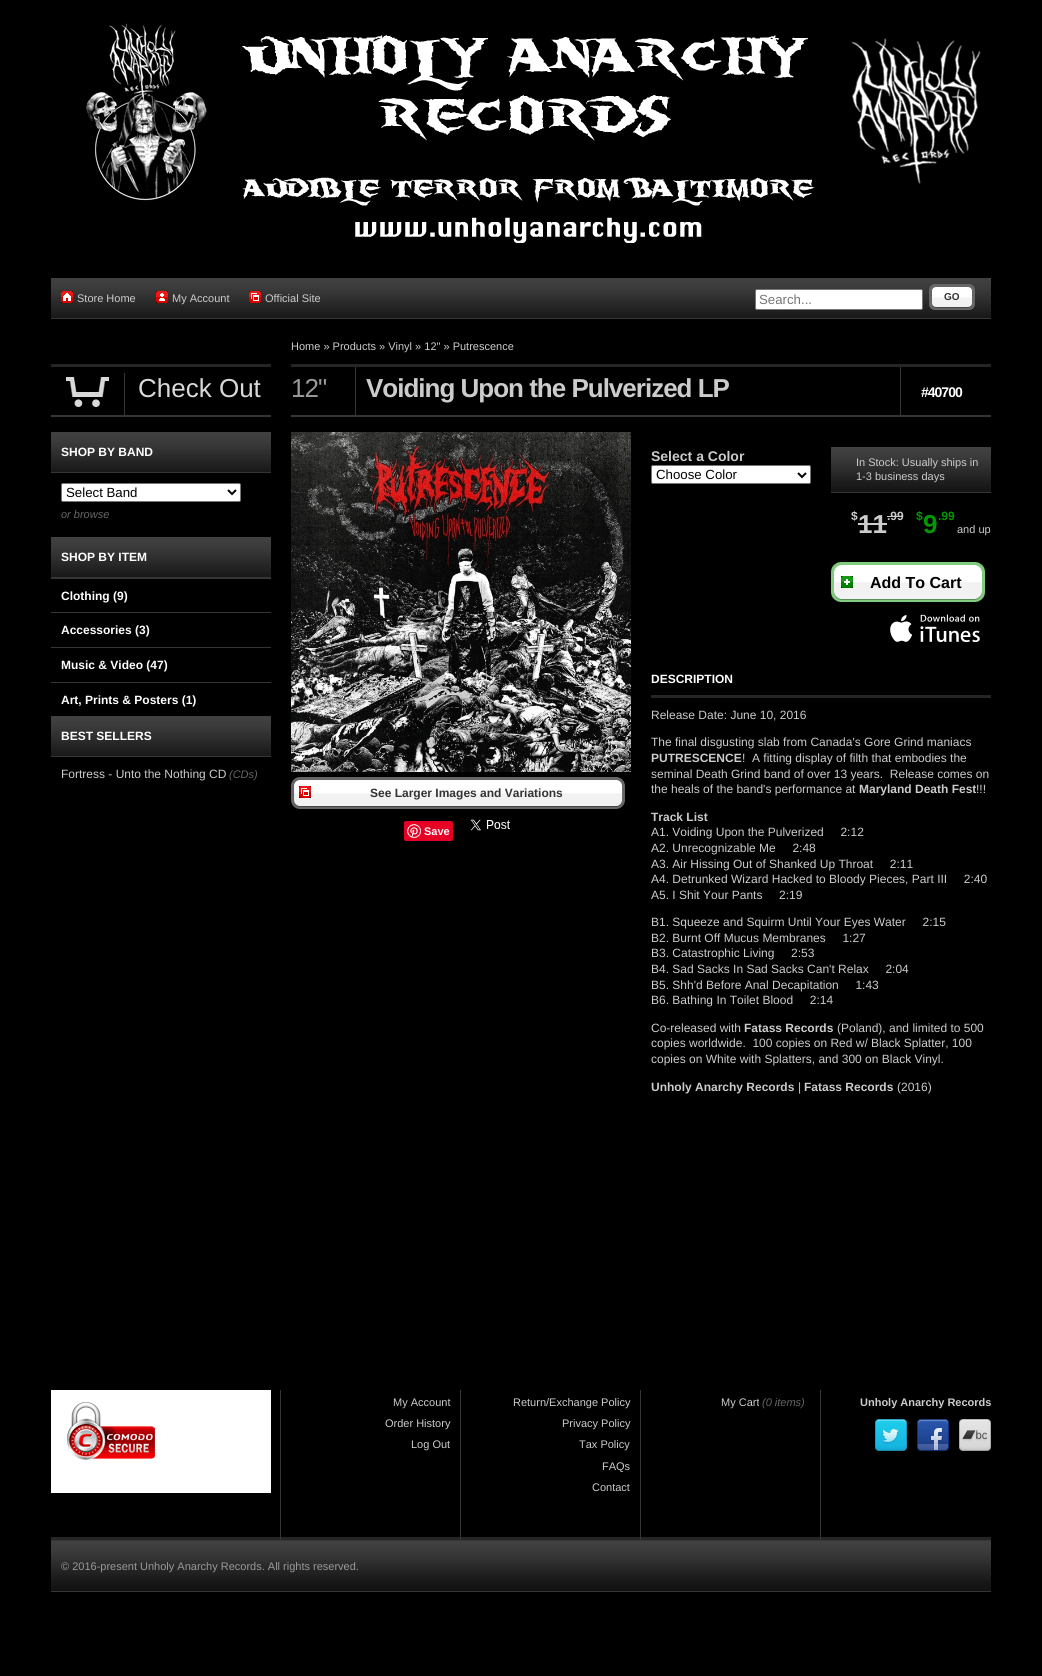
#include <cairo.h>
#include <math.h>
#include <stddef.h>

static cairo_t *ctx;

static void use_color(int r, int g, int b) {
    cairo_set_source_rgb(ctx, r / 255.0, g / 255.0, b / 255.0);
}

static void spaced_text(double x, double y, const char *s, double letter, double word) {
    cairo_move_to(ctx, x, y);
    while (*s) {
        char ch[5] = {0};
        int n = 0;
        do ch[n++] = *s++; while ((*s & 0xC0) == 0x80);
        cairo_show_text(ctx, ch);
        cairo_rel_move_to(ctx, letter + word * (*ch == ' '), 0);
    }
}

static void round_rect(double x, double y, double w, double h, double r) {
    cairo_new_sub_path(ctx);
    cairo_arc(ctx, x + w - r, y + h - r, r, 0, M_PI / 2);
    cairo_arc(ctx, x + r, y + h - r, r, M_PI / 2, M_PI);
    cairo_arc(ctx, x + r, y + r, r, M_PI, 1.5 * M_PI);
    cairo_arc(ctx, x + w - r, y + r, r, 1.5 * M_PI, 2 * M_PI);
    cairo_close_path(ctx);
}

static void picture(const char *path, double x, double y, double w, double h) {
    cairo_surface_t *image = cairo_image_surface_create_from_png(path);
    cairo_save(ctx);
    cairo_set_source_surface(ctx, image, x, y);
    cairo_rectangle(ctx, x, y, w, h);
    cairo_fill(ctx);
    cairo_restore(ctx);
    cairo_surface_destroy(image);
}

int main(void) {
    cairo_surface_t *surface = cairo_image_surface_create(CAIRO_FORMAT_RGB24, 1042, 1676);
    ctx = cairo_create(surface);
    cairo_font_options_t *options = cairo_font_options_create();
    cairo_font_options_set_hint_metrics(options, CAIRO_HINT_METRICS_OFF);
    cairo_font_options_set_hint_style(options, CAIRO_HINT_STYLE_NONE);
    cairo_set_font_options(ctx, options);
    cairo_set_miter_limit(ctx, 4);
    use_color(0, 0, 0);
    cairo_paint(ctx);
    picture("img1.png", 86, 23, 895, 220);
    picture("img2.png", 51, 278, 940, 40);
    use_color(54, 54, 54);
    cairo_rectangle(ctx, 51, 318, 940, 1);
    cairo_fill(ctx);
    use_color(255, 0, 0);
    cairo_rectangle(ctx, 61, 291, 12, 12);
    cairo_fill(ctx);
    picture("img3.png", 61, 291, 12, 12);
    cairo_select_font_face(ctx, "Liberation Sans", CAIRO_FONT_SLANT_NORMAL, CAIRO_FONT_WEIGHT_NORMAL);
    cairo_set_font_size(ctx, 11);
    use_color(204, 204, 204);
    cairo_move_to(ctx, 77, 302);
    cairo_show_text(ctx, "Store Home");
    use_color(255, 0, 0);
    cairo_rectangle(ctx, 156, 291, 12, 12);
    cairo_fill(ctx);
    picture("img4.png", 156, 291, 12, 12);
    use_color(204, 204, 204);
    cairo_move_to(ctx, 172, 302);
    cairo_show_text(ctx, "My Account");
    use_color(255, 0, 0);
    cairo_rectangle(ctx, 249, 291, 12, 12);
    cairo_fill(ctx);
    picture("img5.png", 249, 291, 12, 12);
    use_color(204, 204, 204);
    cairo_move_to(ctx, 265, 302);
    cairo_show_text(ctx, "Official Site");
    use_color(255, 255, 255);
    round_rect(755.5, 289.5, 167, 20, 1.5);
    cairo_fill_preserve(ctx);
    use_color(118, 118, 118);
    cairo_set_line_width(ctx, 1);
    cairo_stroke(ctx);
    cairo_set_font_size(ctx, 13.25);
    use_color(117, 117, 117);
    cairo_move_to(ctx, 759, 304);
    cairo_show_text(ctx, "Search...");
    picture("img6.png", 929, 284, 7, 26);
    picture("img7.png", 936, 284, 32, 26);
    cairo_select_font_face(ctx, "Liberation Sans", CAIRO_FONT_SLANT_NORMAL, CAIRO_FONT_WEIGHT_BOLD);
    cairo_set_font_size(ctx, 10);
    use_color(51, 51, 51);
    cairo_move_to(ctx, 944, 300);
    cairo_show_text(ctx, "GO");
    picture("img8.png", 968, 284, 7, 26);
    use_color(37, 37, 37);
    cairo_rectangle(ctx, 51, 364, 220, 3);
    cairo_fill(ctx);
    use_color(54, 54, 54);
    cairo_rectangle(ctx, 51, 415, 220, 2);
    cairo_fill(ctx);
    picture("img9.png", 66, 377, 43, 30);
    cairo_rectangle(ctx, 124, 373, 1, 42);
    cairo_fill(ctx);
    cairo_select_font_face(ctx, "Liberation Sans", CAIRO_FONT_SLANT_NORMAL, CAIRO_FONT_WEIGHT_NORMAL);
    cairo_set_font_size(ctx, 26);
    use_color(217, 217, 217);
    cairo_move_to(ctx, 138, 397);
    cairo_show_text(ctx, "Check Out");
    picture("img10.png", 51, 432, 220, 40);
    use_color(54, 54, 54);
    cairo_rectangle(ctx, 51, 472, 220, 1);
    cairo_fill(ctx);
    cairo_select_font_face(ctx, "Liberation Sans", CAIRO_FONT_SLANT_NORMAL, CAIRO_FONT_WEIGHT_BOLD);
    cairo_set_font_size(ctx, 12);
    use_color(255, 255, 255);
    cairo_move_to(ctx, 61, 456);
    cairo_show_text(ctx, "SHOP BY BAND");
    round_rect(61.5, 483.5, 179, 18, 1.5);
    cairo_fill_preserve(ctx);
    use_color(118, 118, 118);
    cairo_stroke(ctx);
    cairo_new_path(ctx);
    cairo_move_to(ctx, 228, 490);
    cairo_line_to(ctx, 232, 494);
    cairo_line_to(ctx, 236, 490);
    use_color(0, 0, 0);
    cairo_set_line_width(ctx, 2);
    cairo_stroke(ctx);
    cairo_select_font_face(ctx, "Liberation Sans", CAIRO_FONT_SLANT_NORMAL, CAIRO_FONT_WEIGHT_NORMAL);
    cairo_set_font_size(ctx, 13.25);
    cairo_move_to(ctx, 66, 497);
    cairo_show_text(ctx, "Select Band");
    cairo_select_font_face(ctx, "Liberation Sans", CAIRO_FONT_SLANT_ITALIC, CAIRO_FONT_WEIGHT_NORMAL);
    cairo_set_font_size(ctx, 11);
    use_color(102, 102, 102);
    cairo_move_to(ctx, 61, 518);
    cairo_show_text(ctx, "or browse");
    picture("img10.png", 51, 537, 220, 40);
    use_color(54, 54, 54);
    cairo_rectangle(ctx, 51, 577, 220, 2);
    cairo_fill(ctx);
    cairo_select_font_face(ctx, "Liberation Sans", CAIRO_FONT_SLANT_NORMAL, CAIRO_FONT_WEIGHT_BOLD);
    cairo_set_font_size(ctx, 12);
    use_color(255, 255, 255);
    cairo_move_to(ctx, 61, 561);
    cairo_show_text(ctx, "SHOP BY ITEM");
    use_color(54, 54, 54);
    cairo_rectangle(ctx, 51, 612, 220, 1);
    cairo_fill(ctx);
    use_color(255, 255, 255);
    cairo_move_to(ctx, 61, 600);
    cairo_show_text(ctx, "Clothing (9)");
    use_color(54, 54, 54);
    cairo_rectangle(ctx, 51, 647, 220, 1);
    cairo_fill(ctx);
    use_color(255, 255, 255);
    cairo_move_to(ctx, 61, 634);
    cairo_show_text(ctx, "Accessories (3)");
    use_color(54, 54, 54);
    cairo_rectangle(ctx, 51, 682, 220, 1);
    cairo_fill(ctx);
    use_color(255, 255, 255);
    cairo_move_to(ctx, 61, 669);
    cairo_show_text(ctx, "Music & Video (47)");
    cairo_move_to(ctx, 61, 704);
    cairo_show_text(ctx, "Art, Prints & Posters (1)");
    picture("img10.png", 51, 716, 220, 40);
    use_color(54, 54, 54);
    cairo_rectangle(ctx, 51, 756, 220, 1);
    cairo_fill(ctx);
    use_color(255, 255, 255);
    cairo_move_to(ctx, 61, 740);
    cairo_show_text(ctx, "BEST SELLERS");
    cairo_select_font_face(ctx, "Liberation Sans", CAIRO_FONT_SLANT_NORMAL, CAIRO_FONT_WEIGHT_NORMAL);
    use_color(204, 204, 204);
    cairo_move_to(ctx, 61, 778);
    cairo_show_text(ctx, "Fortress - Unto the Nothing CD");
    cairo_select_font_face(ctx, "Liberation Sans", CAIRO_FONT_SLANT_ITALIC, CAIRO_FONT_WEIGHT_NORMAL);
    cairo_set_font_size(ctx, 11);
    use_color(102, 102, 102);
    cairo_move_to(ctx, 229, 778);
    cairo_show_text(ctx, "(CDs)");
    use_color(37, 37, 37);
    cairo_rectangle(ctx, 291, 364, 700, 3);
    cairo_fill(ctx);
    cairo_select_font_face(ctx, "Liberation Sans", CAIRO_FONT_SLANT_NORMAL, CAIRO_FONT_WEIGHT_NORMAL);
    use_color(204, 204, 204);
    cairo_move_to(ctx, 291, 350);
    cairo_show_text(ctx, "Home » Products » Vinyl » 12\" » Putrescence");
    use_color(54, 54, 54);
    cairo_rectangle(ctx, 291, 416, 700, 1);
    cairo_fill(ctx);
    cairo_rectangle(ctx, 291, 415, 64, 1);
    cairo_fill(ctx);
    cairo_set_font_size(ctx, 26);
    use_color(153, 153, 153);
    spaced_text(291, 397, "12\"", -1, 0);
    use_color(54, 54, 54);
    cairo_rectangle(ctx, 900, 367, 1, 49);
    cairo_fill(ctx);
    cairo_rectangle(ctx, 355, 415, 636, 1);
    cairo_fill(ctx);
    cairo_rectangle(ctx, 355, 367, 1, 49);
    cairo_fill(ctx);
    cairo_select_font_face(ctx, "Liberation Sans", CAIRO_FONT_SLANT_NORMAL, CAIRO_FONT_WEIGHT_BOLD);
    use_color(204, 204, 204);
    spaced_text(366, 397, "Voiding Upon the Pulverized LP", -1, 0);
    cairo_set_font_size(ctx, 14);
    use_color(255, 255, 255);
    spaced_text(921, 397, "#40700", -1, 0);
    picture("img11.png", 291, 432, 340, 340);
    picture("img12.png", 291, 777, 8, 32);
    picture("img13.png", 299, 777, 318, 32);
    use_color(255, 0, 0);
    cairo_rectangle(ctx, 299, 786, 12, 12);
    cairo_fill(ctx);
    picture("img5.png", 299, 786, 12, 12);
    cairo_set_font_size(ctx, 12);
    use_color(51, 51, 51);
    cairo_move_to(ctx, 370, 797);
    cairo_show_text(ctx, "See Larger Images and Variations");
    picture("img14.png", 617, 777, 8, 32);
    use_color(230, 0, 35);
    round_rect(404, 821, 49, 20, 2);
    cairo_fill(ctx);
    picture("img15.png", 407, 824, 14, 14);
    cairo_set_font_size(ctx, 11);
    use_color(255, 255, 255);
    cairo_move_to(ctx, 424, 835);
    cairo_show_text(ctx, "Save");
    picture("img16.png", 470, 819, 40, 12);
    cairo_set_font_size(ctx, 14);
    use_color(204, 204, 204);
    cairo_move_to(ctx, 651, 461);
    cairo_show_text(ctx, "Select a Color");
    use_color(255, 255, 255);
    round_rect(651.5, 465.5, 159, 18, 1.5);
    cairo_fill_preserve(ctx);
    use_color(118, 118, 118);
    cairo_set_line_width(ctx, 1);
    cairo_stroke(ctx);
    cairo_new_path(ctx);
    cairo_move_to(ctx, 798, 473);
    cairo_line_to(ctx, 802, 477);
    cairo_line_to(ctx, 806, 473);
    use_color(0, 0, 0);
    cairo_set_line_width(ctx, 2);
    cairo_stroke(ctx);
    cairo_select_font_face(ctx, "Liberation Sans", CAIRO_FONT_SLANT_NORMAL, CAIRO_FONT_WEIGHT_NORMAL);
    cairo_set_font_size(ctx, 13.25);
    cairo_move_to(ctx, 656, 479);
    cairo_show_text(ctx, "Choose Color");
    picture("img17.png", 831, 447, 160, 45);
    use_color(54, 54, 54);
    cairo_rectangle(ctx, 831, 492, 160, 1);
    cairo_fill(ctx);
    cairo_set_font_size(ctx, 11);
    use_color(204, 204, 204);
    cairo_move_to(ctx, 856, 466);
    cairo_show_text(ctx, "In Stock: Usually ships in");
    cairo_move_to(ctx, 856, 480);
    cairo_show_text(ctx, "1-3 business days");
    cairo_select_font_face(ctx, "Liberation Sans", CAIRO_FONT_SLANT_NORMAL, CAIRO_FONT_WEIGHT_BOLD);
    cairo_set_font_size(ctx, 12);
    cairo_move_to(ctx, 851, 520);
    cairo_show_text(ctx, "$");
    cairo_set_font_size(ctx, 26);
    cairo_move_to(ctx, 858, 533);
    cairo_show_text(ctx, "11");
    cairo_rectangle(ctx, 858, 523, 29, 2);
    cairo_fill(ctx);
    cairo_set_font_size(ctx, 12);
    cairo_move_to(ctx, 887, 520);
    cairo_show_text(ctx, ".99");
    cairo_rectangle(ctx, 887, 516, 16, 1);
    cairo_fill(ctx);
    use_color(0, 153, 0);
    cairo_move_to(ctx, 916, 520);
    cairo_show_text(ctx, "$");
    cairo_set_font_size(ctx, 26);
    cairo_move_to(ctx, 923, 533);
    cairo_show_text(ctx, "9");
    cairo_set_font_size(ctx, 12);
    cairo_move_to(ctx, 938, 520);
    cairo_show_text(ctx, ".99");
    cairo_select_font_face(ctx, "Liberation Sans", CAIRO_FONT_SLANT_NORMAL, CAIRO_FONT_WEIGHT_NORMAL);
    cairo_set_font_size(ctx, 11);
    use_color(204, 204, 204);
    cairo_move_to(ctx, 957, 533);
    cairo_show_text(ctx, "and up");
    picture("img18.png", 831, 562, 10, 40);
    picture("img19.png", 841, 562, 134, 40);
    use_color(0, 153, 0);
    cairo_rectangle(ctx, 841, 576, 12, 12);
    cairo_fill(ctx);
    picture("img20.png", 841, 576, 12, 12);
    cairo_select_font_face(ctx, "Liberation Sans", CAIRO_FONT_SLANT_NORMAL, CAIRO_FONT_WEIGHT_BOLD);
    cairo_set_font_size(ctx, 16);
    use_color(0, 0, 0);
    cairo_move_to(ctx, 870, 588);
    cairo_show_text(ctx, "Add To Cart");
    picture("img21.png", 975, 562, 10, 40);
    picture("img22.png", 890, 614, 90, 29);
    use_color(37, 37, 37);
    cairo_rectangle(ctx, 651, 695, 340, 3);
    cairo_fill(ctx);
    cairo_set_font_size(ctx, 12);
    use_color(255, 255, 255);
    cairo_move_to(ctx, 651, 683);
    cairo_show_text(ctx, "DESCRIPTION");
    cairo_select_font_face(ctx, "Liberation Sans", CAIRO_FONT_SLANT_NORMAL, CAIRO_FONT_WEIGHT_NORMAL);
    use_color(204, 204, 204);
    cairo_move_to(ctx, 651, 719);
    cairo_show_text(ctx, "Release Date: June 10, 2016");
    cairo_move_to(ctx, 651, 746);
    cairo_show_text(ctx, "The final disgusting slab from Canada's Gore Grind maniacs");
    cairo_select_font_face(ctx, "Liberation Sans", CAIRO_FONT_SLANT_NORMAL, CAIRO_FONT_WEIGHT_BOLD);
    cairo_move_to(ctx, 651, 762);
    cairo_show_text(ctx, "PUTRESCENCE");
    cairo_select_font_face(ctx, "Liberation Sans", CAIRO_FONT_SLANT_NORMAL, CAIRO_FONT_WEIGHT_NORMAL);
    cairo_move_to(ctx, 742, 762);
    cairo_show_text(ctx, "!  A fitting display of filth that embodies the");
    cairo_move_to(ctx, 651, 778);
    cairo_show_text(ctx, "seminal Death Grind band of over 13 years.  Release comes on");
    cairo_move_to(ctx, 651, 793);
    cairo_show_text(ctx, "the heals of the band's performance at");
    cairo_select_font_face(ctx, "Liberation Sans", CAIRO_FONT_SLANT_NORMAL, CAIRO_FONT_WEIGHT_BOLD);
    cairo_move_to(ctx, 859, 793);
    cairo_show_text(ctx, "Maryland Death Fest");
    cairo_select_font_face(ctx, "Liberation Sans", CAIRO_FONT_SLANT_NORMAL, CAIRO_FONT_WEIGHT_NORMAL);
    cairo_move_to(ctx, 976, 793);
    cairo_show_text(ctx, "!!!");
    cairo_select_font_face(ctx, "Liberation Sans", CAIRO_FONT_SLANT_NORMAL, CAIRO_FONT_WEIGHT_BOLD);
    cairo_move_to(ctx, 651, 821);
    cairo_show_text(ctx, "Track List");
    cairo_select_font_face(ctx, "Liberation Sans", CAIRO_FONT_SLANT_NORMAL, CAIRO_FONT_WEIGHT_NORMAL);
    cairo_move_to(ctx, 651, 836);
    cairo_show_text(ctx, "A1. Voiding Upon the Pulverized     2:12");
    cairo_move_to(ctx, 651, 852);
    cairo_show_text(ctx, "A2. Unrecognizable Me     2:48");
    cairo_move_to(ctx, 651, 868);
    cairo_show_text(ctx, "A3. Air Hissing Out of Shanked Up Throat     2:11");
    cairo_move_to(ctx, 651, 883);
    cairo_show_text(ctx, "A4. Detrunked Wizard Hacked to Bloody Pieces, Part III     2:40");
    cairo_move_to(ctx, 651, 899);
    cairo_show_text(ctx, "A5. I Shit Your Pants     2:19");
    cairo_move_to(ctx, 651, 926);
    cairo_show_text(ctx, "B1. Squeeze and Squirm Until Your Eyes Water     2:15");
    cairo_move_to(ctx, 651, 942);
    cairo_show_text(ctx, "B2. Burnt Off Mucus Membranes     1:27");
    cairo_move_to(ctx, 651, 957);
    cairo_show_text(ctx, "B3. Catastrophic Living     2:53");
    cairo_move_to(ctx, 651, 973);
    cairo_show_text(ctx, "B4. Sad Sacks In Sad Sacks Can't Relax     2:04");
    cairo_move_to(ctx, 651, 989);
    cairo_show_text(ctx, "B5. Shh'd Before Anal Decapitation     1:43");
    cairo_move_to(ctx, 651, 1004);
    cairo_show_text(ctx, "B6. Bathing In Toilet Blood     2:14");
    cairo_move_to(ctx, 651, 1032);
    cairo_show_text(ctx, "Co-released with");
    cairo_select_font_face(ctx, "Liberation Sans", CAIRO_FONT_SLANT_NORMAL, CAIRO_FONT_WEIGHT_BOLD);
    cairo_move_to(ctx, 744, 1032);
    cairo_show_text(ctx, "Fatass Records");
    cairo_select_font_face(ctx, "Liberation Sans", CAIRO_FONT_SLANT_NORMAL, CAIRO_FONT_WEIGHT_NORMAL);
    cairo_move_to(ctx, 837, 1032);
    cairo_show_text(ctx, "(Poland), and limited to 500");
    cairo_move_to(ctx, 651, 1047);
    cairo_show_text(ctx, "copies worldwide.  100 copies on Red w/ Black Splatter, 100");
    cairo_move_to(ctx, 651, 1063);
    cairo_show_text(ctx, "copies on White with Splatters, and 300 on Black Vinyl.");
    cairo_select_font_face(ctx, "Liberation Sans", CAIRO_FONT_SLANT_NORMAL, CAIRO_FONT_WEIGHT_BOLD);
    cairo_move_to(ctx, 651, 1091);
    cairo_show_text(ctx, "Unholy Anarchy Records");
    cairo_select_font_face(ctx, "Liberation Sans", CAIRO_FONT_SLANT_NORMAL, CAIRO_FONT_WEIGHT_NORMAL);
    cairo_move_to(ctx, 798, 1091);
    cairo_show_text(ctx, "|");
    cairo_select_font_face(ctx, "Liberation Sans", CAIRO_FONT_SLANT_NORMAL, CAIRO_FONT_WEIGHT_BOLD);
    cairo_move_to(ctx, 804, 1091);
    cairo_show_text(ctx, "Fatass Records");
    cairo_select_font_face(ctx, "Liberation Sans", CAIRO_FONT_SLANT_NORMAL, CAIRO_FONT_WEIGHT_NORMAL);
    cairo_move_to(ctx, 897, 1091);
    cairo_show_text(ctx, "(2016)");
    use_color(37, 37, 37);
    cairo_rectangle(ctx, 51, 1537, 940, 3);
    cairo_fill(ctx);
    use_color(54, 54, 54);
    cairo_rectangle(ctx, 280, 1390, 1, 150);
    cairo_fill(ctx);
    use_color(255, 255, 255);
    cairo_rectangle(ctx, 51, 1390, 220, 103);
    cairo_fill(ctx);
    picture("img23.png", 67, 1402, 88, 58);
    use_color(54, 54, 54);
    cairo_rectangle(ctx, 460, 1390, 1, 150);
    cairo_fill(ctx);
    cairo_set_font_size(ctx, 11);
    use_color(204, 204, 204);
    cairo_move_to(ctx, 393, 1406);
    cairo_show_text(ctx, "My Account");
    cairo_move_to(ctx, 385, 1427);
    cairo_show_text(ctx, "Order History");
    cairo_move_to(ctx, 411, 1448);
    cairo_show_text(ctx, "Log Out");
    use_color(54, 54, 54);
    cairo_rectangle(ctx, 640, 1390, 1, 150);
    cairo_fill(ctx);
    use_color(204, 204, 204);
    cairo_move_to(ctx, 513, 1406);
    cairo_show_text(ctx, "Return/Exchange Policy");
    cairo_move_to(ctx, 562, 1427);
    cairo_show_text(ctx, "Privacy Policy");
    cairo_move_to(ctx, 579, 1448);
    cairo_show_text(ctx, "Tax Policy");
    cairo_move_to(ctx, 602, 1470);
    cairo_show_text(ctx, "FAQs");
    cairo_move_to(ctx, 592, 1491);
    cairo_show_text(ctx, "Contact");
    use_color(54, 54, 54);
    cairo_rectangle(ctx, 820, 1390, 1, 150);
    cairo_fill(ctx);
    use_color(204, 204, 204);
    cairo_move_to(ctx, 721, 1406);
    cairo_show_text(ctx, "My Cart");
    cairo_select_font_face(ctx, "Liberation Sans", CAIRO_FONT_SLANT_ITALIC, CAIRO_FONT_WEIGHT_NORMAL);
    use_color(102, 102, 102);
    cairo_move_to(ctx, 762, 1406);
    cairo_show_text(ctx, "(0 items)");
    cairo_select_font_face(ctx, "Liberation Sans", CAIRO_FONT_SLANT_NORMAL, CAIRO_FONT_WEIGHT_BOLD);
    use_color(204, 204, 204);
    cairo_move_to(ctx, 860, 1406);
    cairo_show_text(ctx, "Unholy Anarchy Records");
    picture("img24.png", 875, 1419, 32, 32);
    picture("img25.png", 917, 1419, 32, 32);
    picture("img26.png", 959, 1419, 32, 32);
    picture("img27.png", 51, 1541, 940, 51);
    use_color(54, 54, 54);
    cairo_rectangle(ctx, 51, 1540, 940, 1);
    cairo_fill(ctx);
    cairo_select_font_face(ctx, "Liberation Sans", CAIRO_FONT_SLANT_NORMAL, CAIRO_FONT_WEIGHT_NORMAL);
    use_color(153, 153, 153);
    cairo_move_to(ctx, 61, 1570);
    cairo_show_text(ctx, "© 2016-present Unholy Anarchy Records. All rights reserved.");
    cairo_surface_write_to_png(surface, "result.png");
    cairo_font_options_destroy(options);
    cairo_destroy(ctx);
    cairo_surface_destroy(surface);
    return 0;
}
